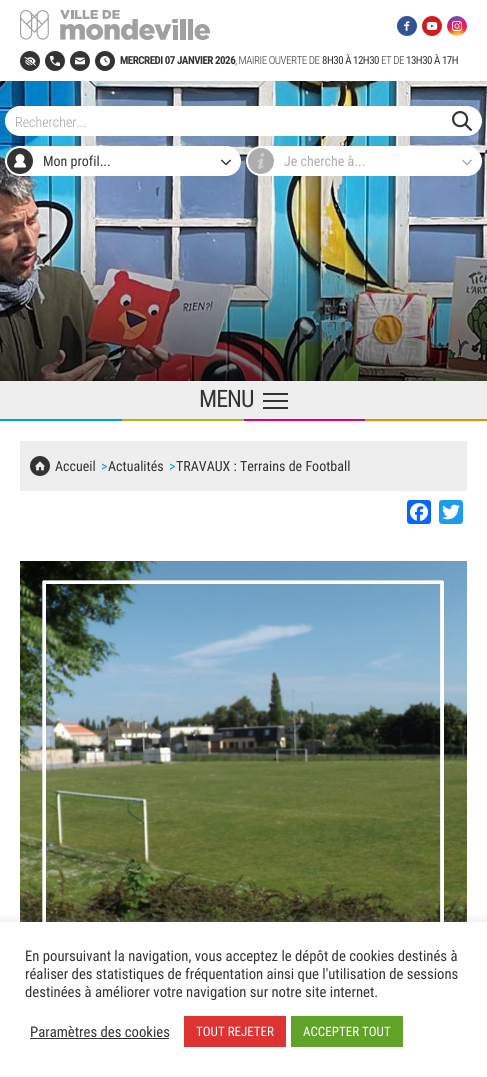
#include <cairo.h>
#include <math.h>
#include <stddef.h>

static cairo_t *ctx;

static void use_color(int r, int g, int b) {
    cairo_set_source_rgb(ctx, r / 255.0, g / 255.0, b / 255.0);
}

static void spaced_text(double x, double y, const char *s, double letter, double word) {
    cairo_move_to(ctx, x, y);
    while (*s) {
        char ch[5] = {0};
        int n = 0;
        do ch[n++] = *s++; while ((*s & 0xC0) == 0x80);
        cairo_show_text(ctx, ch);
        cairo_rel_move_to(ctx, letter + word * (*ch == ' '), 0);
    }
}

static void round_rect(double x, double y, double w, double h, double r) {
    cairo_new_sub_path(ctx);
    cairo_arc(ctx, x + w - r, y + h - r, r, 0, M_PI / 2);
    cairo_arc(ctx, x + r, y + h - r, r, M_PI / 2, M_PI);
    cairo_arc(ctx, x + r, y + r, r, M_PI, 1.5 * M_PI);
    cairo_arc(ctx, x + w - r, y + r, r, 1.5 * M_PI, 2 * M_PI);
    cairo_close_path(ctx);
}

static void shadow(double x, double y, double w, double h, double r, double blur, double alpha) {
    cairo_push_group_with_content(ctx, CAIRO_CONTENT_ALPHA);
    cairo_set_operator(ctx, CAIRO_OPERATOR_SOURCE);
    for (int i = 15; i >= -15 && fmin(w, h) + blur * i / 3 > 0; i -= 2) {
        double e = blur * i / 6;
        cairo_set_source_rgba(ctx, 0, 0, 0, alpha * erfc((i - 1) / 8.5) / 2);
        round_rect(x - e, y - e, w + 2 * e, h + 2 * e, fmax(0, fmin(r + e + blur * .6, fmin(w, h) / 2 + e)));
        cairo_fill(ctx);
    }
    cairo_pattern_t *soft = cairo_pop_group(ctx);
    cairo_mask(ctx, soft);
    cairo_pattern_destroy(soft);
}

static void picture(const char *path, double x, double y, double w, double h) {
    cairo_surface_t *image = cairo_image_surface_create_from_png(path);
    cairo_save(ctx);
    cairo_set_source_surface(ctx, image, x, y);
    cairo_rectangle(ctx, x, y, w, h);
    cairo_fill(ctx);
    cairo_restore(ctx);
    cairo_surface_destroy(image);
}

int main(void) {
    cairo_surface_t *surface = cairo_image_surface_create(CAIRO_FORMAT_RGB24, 487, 1077);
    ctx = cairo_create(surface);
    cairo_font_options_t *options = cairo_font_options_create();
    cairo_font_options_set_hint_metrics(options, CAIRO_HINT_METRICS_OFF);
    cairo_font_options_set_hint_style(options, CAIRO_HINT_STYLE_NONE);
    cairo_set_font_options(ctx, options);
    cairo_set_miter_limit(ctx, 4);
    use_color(255, 255, 255);
    cairo_paint(ctx);
    picture("img1.png", 20, 10, 190, 30);
    picture("img2.png", 397, 16, 20, 20);
    picture("img3.png", 422, 16, 20, 20);
    picture("img4.png", 447, 16, 20, 20);
    picture("img5.png", 20, 51, 20, 20);
    picture("img6.png", 45, 51, 20, 20);
    picture("img7.png", 70, 51, 20, 20);
    picture("img8.png", 95, 51, 20, 20);
    cairo_select_font_face(ctx, "Roboto Condensed", CAIRO_FONT_SLANT_NORMAL, CAIRO_FONT_WEIGHT_BOLD);
    cairo_set_font_size(ctx, 11);
    use_color(51, 51, 51);
    spaced_text(120, 64, "MERCREDI 07 JANVIER 2026", -0.5, 0);
    cairo_select_font_face(ctx, "Roboto Condensed Light", CAIRO_FONT_SLANT_NORMAL, CAIRO_FONT_WEIGHT_NORMAL);
    spaced_text(235, 64, ", MAIRIE OUVERTE DE", -0.5, 0);
    cairo_select_font_face(ctx, "Roboto Condensed", CAIRO_FONT_SLANT_NORMAL, CAIRO_FONT_WEIGHT_NORMAL);
    spaced_text(322, 64, "8H30 À 12H30", -0.5, 0);
    cairo_select_font_face(ctx, "Roboto Condensed Light", CAIRO_FONT_SLANT_NORMAL, CAIRO_FONT_WEIGHT_NORMAL);
    spaced_text(381, 64, "ET DE", -0.5, 0);
    cairo_select_font_face(ctx, "Roboto Condensed", CAIRO_FONT_SLANT_NORMAL, CAIRO_FONT_WEIGHT_NORMAL);
    spaced_text(406, 64, "13H30 À 17H", -0.5, 0);
    picture("img9.png", 0, 81, 487, 300);
    use_color(255, 255, 255);
    round_rect(5, 106, 477, 30, 15);
    cairo_fill(ctx);
    cairo_select_font_face(ctx, "Roboto Condensed Light", CAIRO_FONT_SLANT_NORMAL, CAIRO_FONT_WEIGHT_NORMAL);
    cairo_set_font_size(ctx, 14);
    use_color(160, 161, 163);
    cairo_move_to(ctx, 15, 127);
    cairo_show_text(ctx, "Rechercher...");
    picture("img10.png", 452, 111, 20, 20);
    use_color(255, 255, 255);
    round_rect(5, 146, 236, 30, 15);
    cairo_fill(ctx);
    picture("img11.png", 7, 148, 26, 26);
    cairo_select_font_face(ctx, "Roboto Condensed", CAIRO_FONT_SLANT_NORMAL, CAIRO_FONT_WEIGHT_NORMAL);
    use_color(51, 51, 51);
    cairo_move_to(ctx, 43, 166);
    cairo_show_text(ctx, "Mon profil...");
    picture("img12.png", 221, 159, 10, 7);
    use_color(255, 255, 255);
    round_rect(246, 146, 236, 30, 15);
    cairo_fill(ctx);
    picture("img13.png", 248, 148, 26, 26);
    use_color(173, 173, 173);
    cairo_move_to(ctx, 284, 166);
    cairo_show_text(ctx, "Je cherche à...");
    picture("img14.png", 462, 159, 10, 7);
    use_color(238, 238, 238);
    cairo_rectangle(ctx, 0, 381, 487, 38);
    cairo_fill(ctx);
    use_color(0, 157, 224);
    cairo_rectangle(ctx, 0, 419, 122, 2);
    cairo_fill(ctx);
    use_color(157, 191, 19);
    cairo_rectangle(ctx, 122, 419, 122, 2);
    cairo_fill(ctx);
    use_color(225, 0, 122);
    cairo_rectangle(ctx, 244, 419, 121, 2);
    cairo_fill(ctx);
    use_color(240, 138, 1);
    cairo_rectangle(ctx, 365, 419, 122, 2);
    cairo_fill(ctx);
    cairo_set_font_size(ctx, 24);
    use_color(51, 51, 51);
    spaced_text(199, 407, "MENU", -1, 0);
    cairo_rectangle(ctx, 263, 393, 25, 2);
    cairo_fill(ctx);
    cairo_rectangle(ctx, 263, 400, 25, 2);
    cairo_fill(ctx);
    cairo_rectangle(ctx, 263, 407, 25, 2);
    cairo_fill(ctx);
    use_color(238, 238, 238);
    cairo_rectangle(ctx, 20, 441, 447, 50);
    cairo_fill(ctx);
    picture("img15.png", 30, 456, 20, 20);
    cairo_set_font_size(ctx, 14);
    use_color(51, 51, 51);
    cairo_move_to(ctx, 55, 471);
    cairo_show_text(ctx, "Accueil");
    use_color(0, 157, 224);
    cairo_move_to(ctx, 101, 471);
    cairo_show_text(ctx, ">");
    use_color(51, 51, 51);
    cairo_move_to(ctx, 108, 471);
    cairo_show_text(ctx, "Actualités");
    use_color(0, 157, 224);
    cairo_move_to(ctx, 169, 471);
    cairo_show_text(ctx, ">");
    use_color(51, 51, 51);
    cairo_move_to(ctx, 176, 471);
    cairo_show_text(ctx, "TRAVAUX : Terrains de Football");
    use_color(8, 102, 255);
    round_rect(407, 500, 24, 24, 3);
    cairo_fill(ctx);
    picture("img16.png", 410, 503, 18, 18);
    use_color(29, 155, 240);
    round_rect(439, 500, 24, 24, 3);
    cairo_fill(ctx);
    picture("img17.png", 442, 504, 18, 16);
    picture("img18.png", 20, 561, 447, 361);
    use_color(172, 171, 171);
    shadow(0, 921, 487, 155, 0, 5, 0.3);
    use_color(255, 255, 255);
    cairo_rectangle(ctx, 0, 922, 487, 155);
    cairo_fill(ctx);
    cairo_set_font_size(ctx, 14.7);
    use_color(51, 51, 51);
    cairo_move_to(ctx, 25, 961);
    cairo_show_text(ctx, "En poursuivant la navigation, vous acceptez le dépôt de cookies destinés à");
    cairo_move_to(ctx, 25, 979);
    cairo_show_text(ctx, "réaliser des statistiques de fréquentation ainsi que l'utilisation de sessions");
    cairo_move_to(ctx, 25, 997);
    cairo_show_text(ctx, "destinées à améliorer votre navigation sur notre site internet.");
    cairo_move_to(ctx, 30, 1037);
    cairo_show_text(ctx, "Paramètres des cookies");
    cairo_rectangle(ctx, 30, 1038, 139, 1);
    cairo_fill(ctx);
    use_color(221, 51, 51);
    cairo_rectangle(ctx, 184, 1016, 102, 31);
    cairo_fill(ctx);
    cairo_set_font_size(ctx, 13);
    use_color(255, 255, 255);
    cairo_move_to(ctx, 196, 1036);
    cairo_show_text(ctx, "TOUT REJETER");
    use_color(97, 162, 41);
    cairo_rectangle(ctx, 291, 1016, 112, 31);
    cairo_fill(ctx);
    use_color(255, 255, 255);
    cairo_move_to(ctx, 303, 1036);
    cairo_show_text(ctx, "ACCEPTER TOUT");
    cairo_surface_write_to_png(surface, "result.png");
    cairo_font_options_destroy(options);
    cairo_destroy(ctx);
    cairo_surface_destroy(surface);
    return 0;
}
